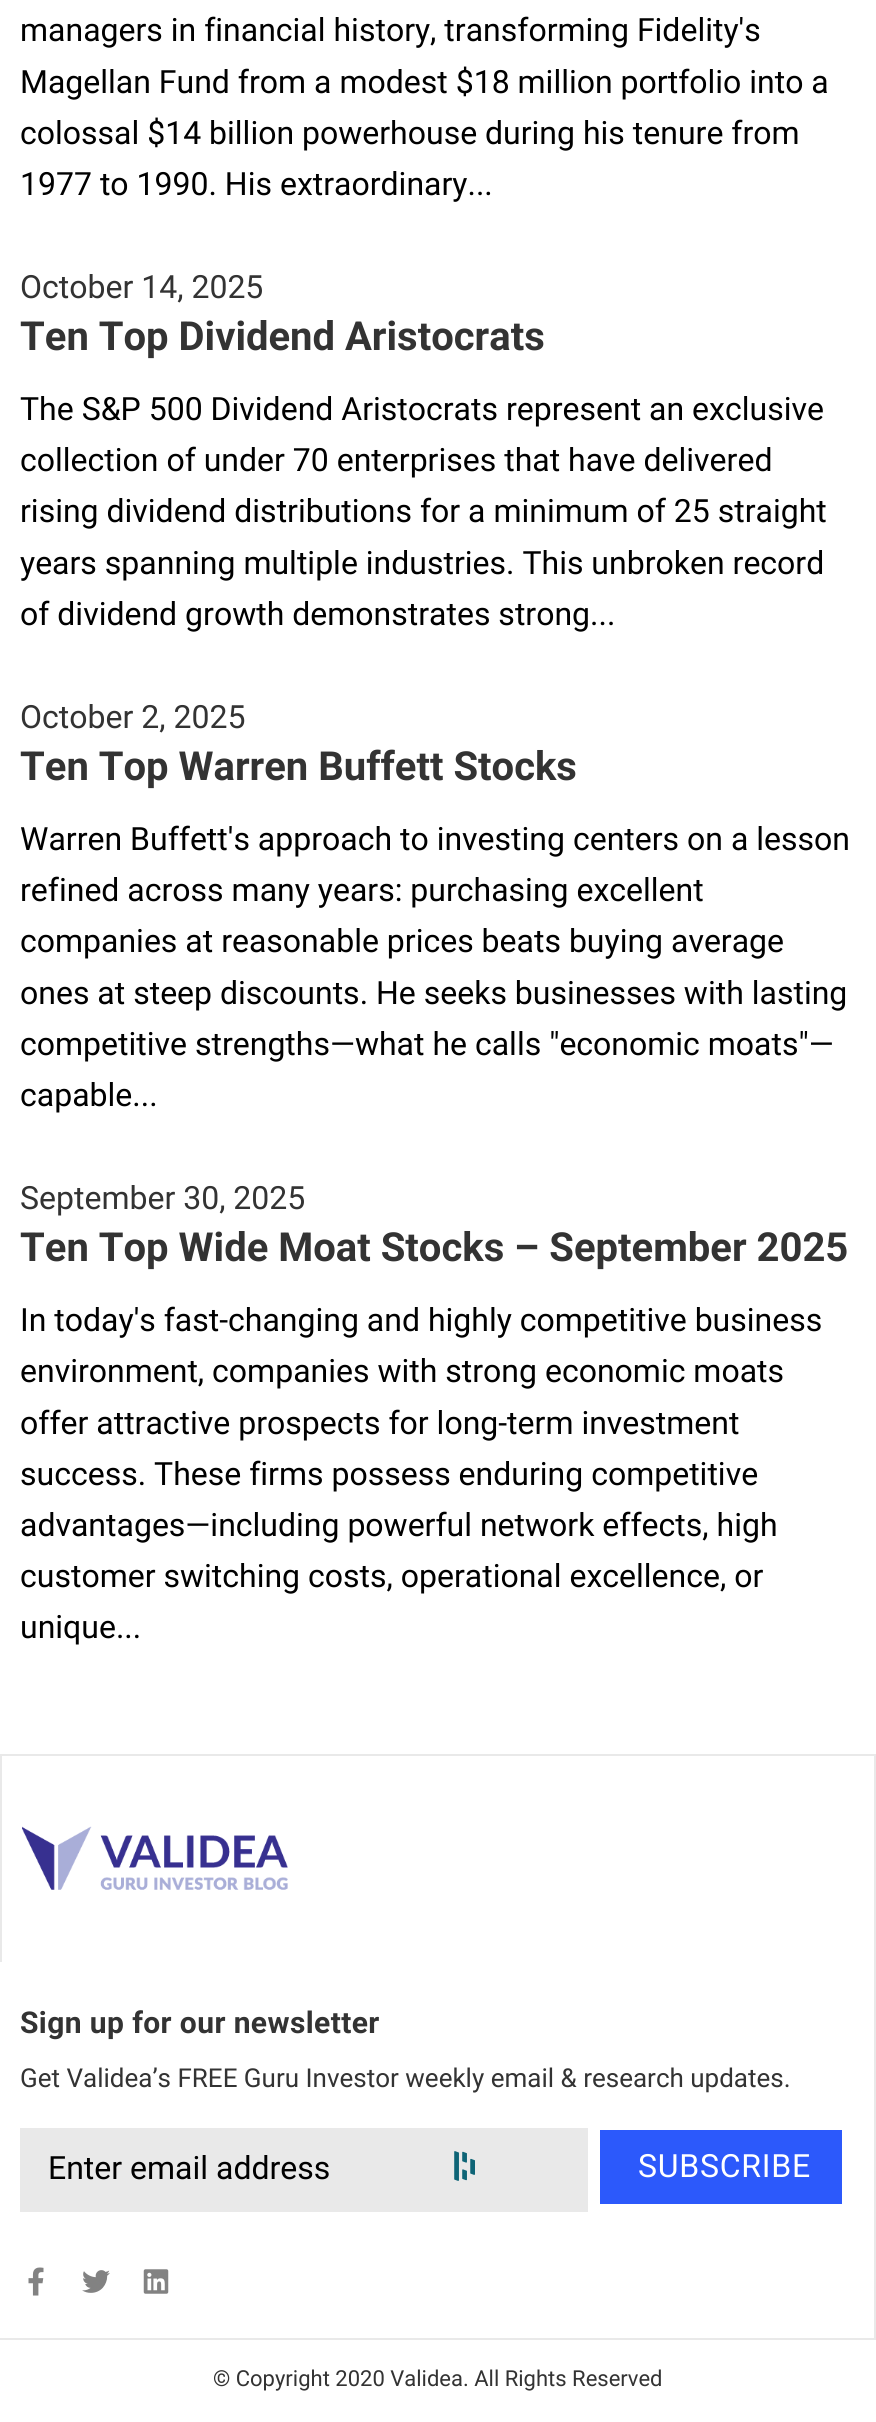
#include <cairo.h>
#include <math.h>
#include <stddef.h>

static cairo_t *ctx;

static void use_color(int r, int g, int b) {
    cairo_set_source_rgb(ctx, r / 255.0, g / 255.0, b / 255.0);
}

static void spaced_text(double x, double y, const char *s, double letter, double word) {
    cairo_move_to(ctx, x, y);
    while (*s) {
        char ch[5] = {0};
        int n = 0;
        do ch[n++] = *s++; while ((*s & 0xC0) == 0x80);
        cairo_show_text(ctx, ch);
        cairo_rel_move_to(ctx, letter + word * (*ch == ' '), 0);
    }
}

static void picture(const char *path, double x, double y, double w, double h) {
    cairo_surface_t *image = cairo_image_surface_create_from_png(path);
    cairo_save(ctx);
    cairo_set_source_surface(ctx, image, x, y);
    cairo_rectangle(ctx, x, y, w, h);
    cairo_fill(ctx);
    cairo_restore(ctx);
    cairo_surface_destroy(image);
}

int main(void) {
    cairo_surface_t *surface = cairo_image_surface_create(CAIRO_FORMAT_RGB24, 876, 2422);
    ctx = cairo_create(surface);
    cairo_font_options_t *options = cairo_font_options_create();
    cairo_font_options_set_hint_metrics(options, CAIRO_HINT_METRICS_OFF);
    cairo_font_options_set_hint_style(options, CAIRO_HINT_STYLE_NONE);
    cairo_set_font_options(ctx, options);
    cairo_set_miter_limit(ctx, 4);
    use_color(255, 255, 255);
    cairo_paint(ctx);
    cairo_select_font_face(ctx, "Roboto", CAIRO_FONT_SLANT_NORMAL, CAIRO_FONT_WEIGHT_NORMAL);
    cairo_set_font_size(ctx, 32);
    use_color(0, 0, 0);
    cairo_move_to(ctx, 20, 41);
    cairo_show_text(ctx, "managers in financial history, transforming Fidelity's");
    cairo_move_to(ctx, 20, 93);
    cairo_show_text(ctx, "Magellan Fund from a modest $18 million portfolio into a");
    cairo_move_to(ctx, 20, 144);
    cairo_show_text(ctx, "colossal $14 billion powerhouse during his tenure from");
    cairo_move_to(ctx, 20, 195);
    cairo_show_text(ctx, "1977 to 1990. His extraordinary...");
    use_color(51, 51, 51);
    cairo_move_to(ctx, 20, 298);
    cairo_show_text(ctx, "October 14, 2025");
    cairo_select_font_face(ctx, "Roboto", CAIRO_FONT_SLANT_NORMAL, CAIRO_FONT_WEIGHT_BOLD);
    cairo_set_font_size(ctx, 40);
    cairo_move_to(ctx, 20, 350);
    cairo_show_text(ctx, "Ten Top Dividend Aristocrats");
    cairo_select_font_face(ctx, "Roboto", CAIRO_FONT_SLANT_NORMAL, CAIRO_FONT_WEIGHT_NORMAL);
    cairo_set_font_size(ctx, 32);
    use_color(0, 0, 0);
    cairo_move_to(ctx, 20, 420);
    cairo_show_text(ctx, "The S&P 500 Dividend Aristocrats represent an exclusive");
    cairo_move_to(ctx, 20, 471);
    cairo_show_text(ctx, "collection of under 70 enterprises that have delivered");
    cairo_move_to(ctx, 20, 522);
    cairo_show_text(ctx, "rising dividend distributions for a minimum of 25 straight");
    cairo_move_to(ctx, 20, 574);
    cairo_show_text(ctx, "years spanning multiple industries. This unbroken record");
    cairo_move_to(ctx, 20, 625);
    cairo_show_text(ctx, "of dividend growth demonstrates strong...");
    use_color(51, 51, 51);
    cairo_move_to(ctx, 20, 728);
    cairo_show_text(ctx, "October 2, 2025");
    cairo_select_font_face(ctx, "Roboto", CAIRO_FONT_SLANT_NORMAL, CAIRO_FONT_WEIGHT_BOLD);
    cairo_set_font_size(ctx, 40);
    cairo_move_to(ctx, 20, 780);
    cairo_show_text(ctx, "Ten Top Warren Buffett Stocks");
    cairo_select_font_face(ctx, "Roboto", CAIRO_FONT_SLANT_NORMAL, CAIRO_FONT_WEIGHT_NORMAL);
    cairo_set_font_size(ctx, 32);
    use_color(0, 0, 0);
    cairo_move_to(ctx, 20, 850);
    cairo_show_text(ctx, "Warren Buffett's approach to investing centers on a lesson");
    cairo_move_to(ctx, 20, 901);
    cairo_show_text(ctx, "refined across many years: purchasing excellent");
    cairo_move_to(ctx, 20, 952);
    cairo_show_text(ctx, "companies at reasonable prices beats buying average");
    cairo_move_to(ctx, 20, 1004);
    cairo_show_text(ctx, "ones at steep discounts. He seeks businesses with lasting");
    cairo_move_to(ctx, 20, 1055);
    cairo_show_text(ctx, "competitive strengths—what he calls \"economic moats\"—");
    cairo_move_to(ctx, 20, 1106);
    cairo_show_text(ctx, "capable...");
    use_color(51, 51, 51);
    cairo_move_to(ctx, 20, 1209);
    cairo_show_text(ctx, "September 30, 2025");
    cairo_select_font_face(ctx, "Roboto", CAIRO_FONT_SLANT_NORMAL, CAIRO_FONT_WEIGHT_BOLD);
    cairo_set_font_size(ctx, 40);
    cairo_move_to(ctx, 20, 1261);
    cairo_show_text(ctx, "Ten Top Wide Moat Stocks – September 2025");
    cairo_select_font_face(ctx, "Roboto", CAIRO_FONT_SLANT_NORMAL, CAIRO_FONT_WEIGHT_NORMAL);
    cairo_set_font_size(ctx, 32);
    use_color(0, 0, 0);
    cairo_move_to(ctx, 20, 1331);
    cairo_show_text(ctx, "In today's fast-changing and highly competitive business");
    cairo_move_to(ctx, 20, 1382);
    cairo_show_text(ctx, "environment, companies with strong economic moats");
    cairo_move_to(ctx, 20, 1434);
    cairo_show_text(ctx, "offer attractive prospects for long-term investment");
    cairo_move_to(ctx, 20, 1485);
    cairo_show_text(ctx, "success. These firms possess enduring competitive");
    cairo_move_to(ctx, 20, 1536);
    cairo_show_text(ctx, "advantages—including powerful network effects, high");
    cairo_move_to(ctx, 20, 1587);
    cairo_show_text(ctx, "customer switching costs, operational excellence, or");
    cairo_move_to(ctx, 20, 1638);
    cairo_show_text(ctx, "unique...");
    use_color(233, 233, 233);
    cairo_rectangle(ctx, 0, 1754, 876, 2);
    cairo_fill(ctx);
    cairo_rectangle(ctx, 0, 2338, 876, 2);
    cairo_fill(ctx);
    cairo_rectangle(ctx, 874, 1756, 2, 582);
    cairo_fill(ctx);
    cairo_rectangle(ctx, 0, 1756, 2, 206);
    cairo_fill(ctx);
    picture("img1.png", 22, 1826, 266, 64);
    cairo_select_font_face(ctx, "Roboto", CAIRO_FONT_SLANT_NORMAL, CAIRO_FONT_WEIGHT_BOLD);
    cairo_set_font_size(ctx, 30);
    use_color(51, 51, 51);
    spaced_text(20, 2033, "Sign up for our newsletter", 0.4, 0);
    cairo_select_font_face(ctx, "Roboto", CAIRO_FONT_SLANT_NORMAL, CAIRO_FONT_WEIGHT_NORMAL);
    cairo_set_font_size(ctx, 26);
    cairo_move_to(ctx, 20, 2087);
    cairo_show_text(ctx, "Get Validea’s FREE Guru Investor weekly email & research updates.");
    use_color(233, 233, 233);
    cairo_rectangle(ctx, 20, 2128, 568, 84);
    cairo_fill(ctx);
    cairo_set_font_size(ctx, 32);
    use_color(0, 0, 0);
    cairo_move_to(ctx, 48, 2179);
    cairo_show_text(ctx, "Enter email address");
    picture("img2.png", 454, 2151, 21, 30);
    use_color(44, 89, 251);
    cairo_rectangle(ctx, 600, 2130, 242, 74);
    cairo_fill(ctx);
    use_color(255, 255, 255);
    spaced_text(638, 2177, "SUBSCRIBE", 0.75, 0);
    picture("img3.png", 28, 2267, 16, 29);
    picture("img4.png", 82, 2270, 28, 23);
    picture("img5.png", 143, 2269, 26, 25);
    cairo_set_font_size(ctx, 22);
    use_color(51, 51, 51);
    cairo_move_to(ctx, 213, 2386);
    cairo_show_text(ctx, "© Copyright 2020 Validea. All Rights Reserved");
    cairo_surface_write_to_png(surface, "result.png");
    cairo_font_options_destroy(options);
    cairo_destroy(ctx);
    cairo_surface_destroy(surface);
    return 0;
}
